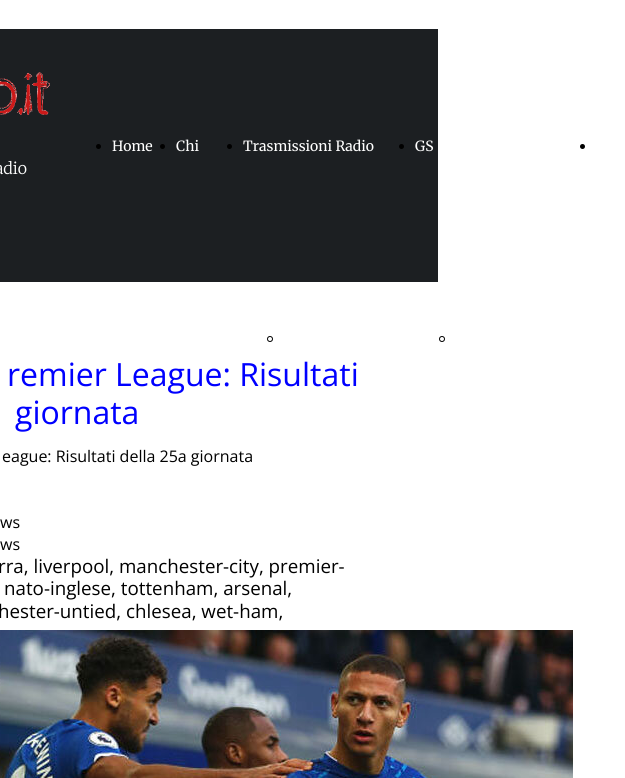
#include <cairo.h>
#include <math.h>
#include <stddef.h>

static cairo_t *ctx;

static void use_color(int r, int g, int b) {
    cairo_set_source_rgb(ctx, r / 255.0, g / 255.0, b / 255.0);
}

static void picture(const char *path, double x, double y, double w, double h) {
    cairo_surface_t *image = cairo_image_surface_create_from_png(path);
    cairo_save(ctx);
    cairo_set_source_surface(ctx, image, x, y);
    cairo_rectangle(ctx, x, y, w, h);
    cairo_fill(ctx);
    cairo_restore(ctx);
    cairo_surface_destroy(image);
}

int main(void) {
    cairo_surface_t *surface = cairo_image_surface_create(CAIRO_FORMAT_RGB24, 625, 778);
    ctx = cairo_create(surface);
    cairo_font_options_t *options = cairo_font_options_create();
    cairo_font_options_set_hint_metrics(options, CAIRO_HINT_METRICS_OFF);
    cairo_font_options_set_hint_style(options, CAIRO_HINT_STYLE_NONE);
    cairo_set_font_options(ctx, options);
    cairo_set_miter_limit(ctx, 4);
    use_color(255, 255, 255);
    cairo_paint(ctx);
    use_color(28, 31, 34);
    cairo_rectangle(ctx, 0, 29, 438, 253);
    cairo_fill(ctx);
    picture("img1.png", 0, 72, 50, 43);
    use_color(0, 0, 0);
    cairo_arc(ctx, 98.5, 146.5, 2.5, 0, 2 * M_PI);
    cairo_fill(ctx);
    cairo_select_font_face(ctx, "Merriweather", CAIRO_FONT_SLANT_NORMAL, CAIRO_FONT_WEIGHT_NORMAL);
    cairo_set_font_size(ctx, 14);
    use_color(255, 255, 255);
    cairo_move_to(ctx, 112, 151);
    cairo_show_text(ctx, "Home");
    use_color(0, 0, 0);
    cairo_new_path(ctx);
    cairo_arc(ctx, 162.5, 146.5, 2.5, 0, 2 * M_PI);
    cairo_fill(ctx);
    use_color(255, 255, 255);
    cairo_move_to(ctx, 176, 151);
    cairo_show_text(ctx, "Chi");
    use_color(0, 0, 0);
    cairo_new_path(ctx);
    cairo_arc(ctx, 229.5, 146.5, 2.5, 0, 2 * M_PI);
    cairo_fill(ctx);
    use_color(255, 255, 255);
    cairo_move_to(ctx, 243, 151);
    cairo_show_text(ctx, "Trasmissioni Radio");
    cairo_new_path(ctx);
    cairo_arc(ctx, 270, 339, 2.5, 0, 2 * M_PI);
    use_color(0, 0, 0);
    cairo_set_line_width(ctx, 1);
    cairo_stroke(ctx);
    cairo_arc(ctx, 401.5, 146.5, 2.5, 0, 2 * M_PI);
    cairo_fill(ctx);
    use_color(255, 255, 255);
    cairo_move_to(ctx, 415, 151);
    cairo_show_text(ctx, "GS");
    cairo_new_path(ctx);
    cairo_arc(ctx, 442, 339, 2.5, 0, 2 * M_PI);
    use_color(0, 0, 0);
    cairo_stroke(ctx);
    cairo_arc(ctx, 582.5, 146.5, 2.5, 0, 2 * M_PI);
    cairo_fill(ctx);
    cairo_select_font_face(ctx, "Merriweather Light", CAIRO_FONT_SLANT_NORMAL, CAIRO_FONT_WEIGHT_NORMAL);
    cairo_set_font_size(ctx, 16);
    use_color(255, 255, 255);
    cairo_move_to(ctx, -5, 174);
    cairo_show_text(ctx, "adio");
    cairo_select_font_face(ctx, "Open Sans", CAIRO_FONT_SLANT_NORMAL, CAIRO_FONT_WEIGHT_NORMAL);
    cairo_set_font_size(ctx, 32);
    use_color(0, 0, 255);
    cairo_move_to(ctx, 7, 386);
    cairo_show_text(ctx, "remier League: Risultati");
    cairo_move_to(ctx, 15, 424);
    cairo_show_text(ctx, "giornata");
    cairo_set_font_size(ctx, 16);
    use_color(0, 0, 0);
    cairo_move_to(ctx, 2, 462);
    cairo_show_text(ctx, "eague: Risultati della 25a giornata");
    cairo_move_to(ctx, 0, 528);
    cairo_show_text(ctx, "ws");
    cairo_move_to(ctx, 0, 550);
    cairo_show_text(ctx, "ws");
    cairo_set_font_size(ctx, 18.75);
    cairo_move_to(ctx, -2, 573);
    cairo_show_text(ctx, "rra, liverpool, manchester-city, premier-");
    cairo_move_to(ctx, 4, 595);
    cairo_show_text(ctx, "nato-inglese, tottenham, arsenal,");
    cairo_move_to(ctx, -2, 618);
    cairo_show_text(ctx, "hester-untied, chlesea, wet-ham,");
    picture("img2.png", 0, 630, 573, 148);
    cairo_surface_write_to_png(surface, "result.png");
    cairo_font_options_destroy(options);
    cairo_destroy(ctx);
    cairo_surface_destroy(surface);
    return 0;
}
